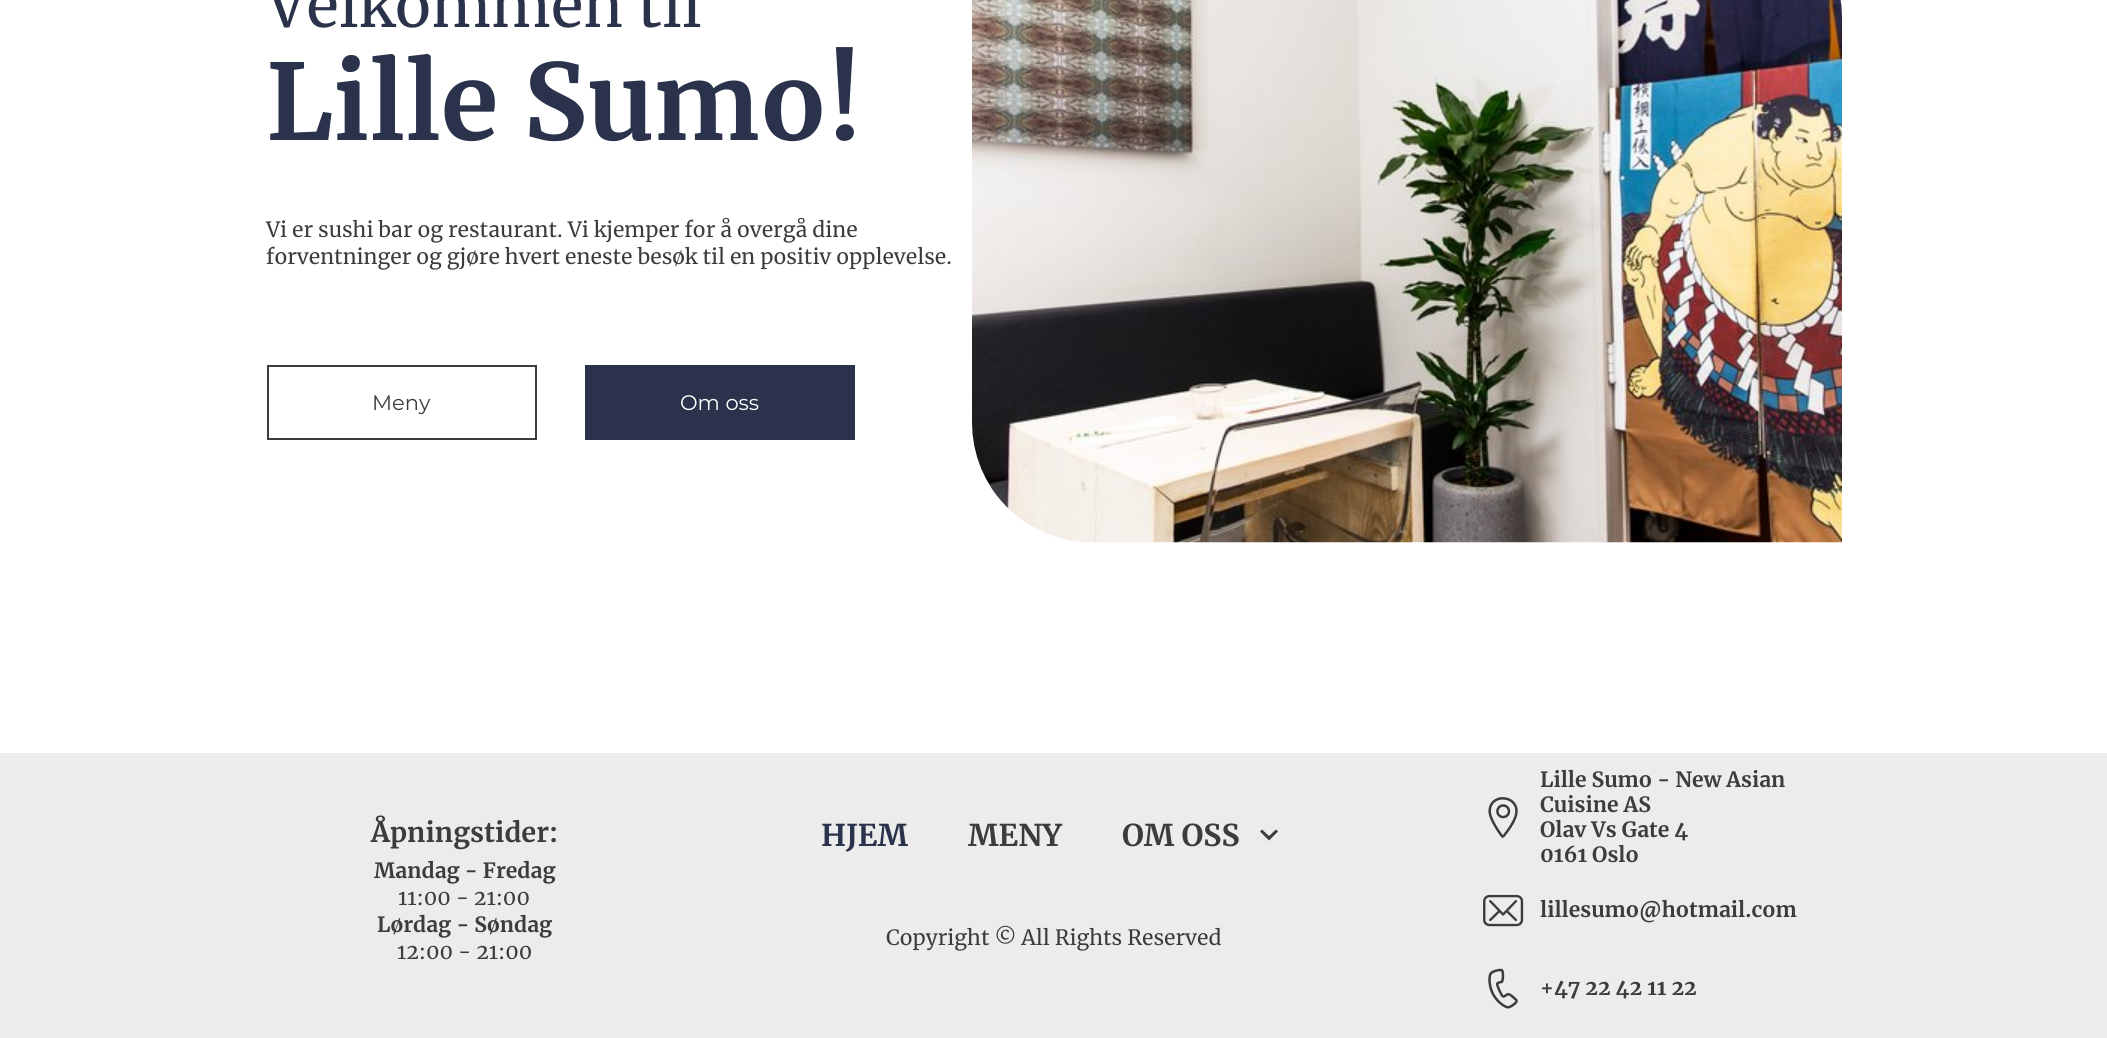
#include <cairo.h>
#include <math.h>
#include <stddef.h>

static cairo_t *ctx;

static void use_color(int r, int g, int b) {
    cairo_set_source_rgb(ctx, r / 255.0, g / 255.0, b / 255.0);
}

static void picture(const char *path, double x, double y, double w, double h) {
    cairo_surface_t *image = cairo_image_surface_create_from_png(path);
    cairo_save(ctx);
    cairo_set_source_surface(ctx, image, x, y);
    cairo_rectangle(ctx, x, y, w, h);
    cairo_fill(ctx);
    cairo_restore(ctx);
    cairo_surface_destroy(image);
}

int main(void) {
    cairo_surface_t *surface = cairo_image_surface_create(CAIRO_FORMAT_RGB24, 2107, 1038);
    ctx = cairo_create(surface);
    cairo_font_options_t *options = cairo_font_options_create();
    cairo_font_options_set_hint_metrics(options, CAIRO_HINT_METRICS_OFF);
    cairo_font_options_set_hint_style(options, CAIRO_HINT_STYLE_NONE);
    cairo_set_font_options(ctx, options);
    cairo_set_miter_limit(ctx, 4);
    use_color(255, 255, 255);
    cairo_paint(ctx);
    cairo_select_font_face(ctx, "Merriweather", CAIRO_FONT_SLANT_NORMAL, CAIRO_FONT_WEIGHT_NORMAL);
    cairo_set_font_size(ctx, 60);
    use_color(42, 51, 75);
    cairo_move_to(ctx, 266, 27);
    cairo_show_text(ctx, "Velkommen til");
    cairo_select_font_face(ctx, "Merriweather", CAIRO_FONT_SLANT_NORMAL, CAIRO_FONT_WEIGHT_BOLD);
    cairo_set_font_size(ctx, 105);
    cairo_move_to(ctx, 266, 140);
    cairo_show_text(ctx, "Lille Sumo!");
    cairo_select_font_face(ctx, "Merriweather", CAIRO_FONT_SLANT_NORMAL, CAIRO_FONT_WEIGHT_NORMAL);
    cairo_set_font_size(ctx, 21);
    use_color(60, 60, 60);
    cairo_move_to(ctx, 266, 237);
    cairo_show_text(ctx, "Vi er sushi bar og restaurant. Vi kjemper for å overgå dine");
    cairo_move_to(ctx, 266, 264);
    cairo_show_text(ctx, "forventninger og gjøre hvert eneste besøk til en positiv opplevelse.");
    picture("img1.png", 972, 0, 870, 543);
    cairo_rectangle(ctx, 268, 366, 268, 73);
    cairo_stroke(ctx);
    cairo_select_font_face(ctx, "Montserrat", CAIRO_FONT_SLANT_NORMAL, CAIRO_FONT_WEIGHT_NORMAL);
    cairo_move_to(ctx, 372, 410);
    cairo_show_text(ctx, "Meny");
    use_color(42, 51, 75);
    cairo_rectangle(ctx, 585, 365, 270, 75);
    cairo_fill(ctx);
    use_color(255, 255, 255);
    cairo_move_to(ctx, 680, 410);
    cairo_show_text(ctx, "Om oss");
    use_color(236, 236, 236);
    cairo_rectangle(ctx, 0, 753, 2107, 285);
    cairo_fill(ctx);
    cairo_select_font_face(ctx, "Merriweather", CAIRO_FONT_SLANT_NORMAL, CAIRO_FONT_WEIGHT_BOLD);
    cairo_set_font_size(ctx, 27);
    use_color(60, 60, 60);
    cairo_move_to(ctx, 371, 842);
    cairo_show_text(ctx, "Åpningstider:");
    cairo_set_font_size(ctx, 21);
    cairo_move_to(ctx, 374, 878);
    cairo_show_text(ctx, "Mandag - Fredag");
    cairo_select_font_face(ctx, "Merriweather", CAIRO_FONT_SLANT_NORMAL, CAIRO_FONT_WEIGHT_NORMAL);
    cairo_move_to(ctx, 398, 905);
    cairo_show_text(ctx, "11:00 - 21:00");
    cairo_select_font_face(ctx, "Merriweather", CAIRO_FONT_SLANT_NORMAL, CAIRO_FONT_WEIGHT_BOLD);
    cairo_move_to(ctx, 377, 932);
    cairo_show_text(ctx, "Lørdag - Søndag");
    cairo_select_font_face(ctx, "Merriweather", CAIRO_FONT_SLANT_NORMAL, CAIRO_FONT_WEIGHT_NORMAL);
    cairo_move_to(ctx, 397, 959);
    cairo_show_text(ctx, "12:00 - 21:00");
    cairo_select_font_face(ctx, "Merriweather", CAIRO_FONT_SLANT_NORMAL, CAIRO_FONT_WEIGHT_BOLD);
    cairo_set_font_size(ctx, 30);
    use_color(42, 51, 75);
    cairo_move_to(ctx, 821, 846);
    cairo_show_text(ctx, "HJEM");
    use_color(60, 60, 60);
    cairo_move_to(ctx, 968, 846);
    cairo_show_text(ctx, "MENY");
    cairo_move_to(ctx, 1122, 846);
    cairo_show_text(ctx, "OM OSS");
    cairo_new_path(ctx);
    cairo_move_to(ctx, 1262, 829.5);
    cairo_line_to(ctx, 1269, 836);
    cairo_line_to(ctx, 1276, 829.5);
    cairo_line_to(ctx, 1278, 831.5);
    cairo_line_to(ctx, 1269, 840.5);
    cairo_line_to(ctx, 1260, 831.5);
    cairo_close_path(ctx);
    cairo_fill(ctx);
    cairo_select_font_face(ctx, "Merriweather", CAIRO_FONT_SLANT_NORMAL, CAIRO_FONT_WEIGHT_NORMAL);
    cairo_set_font_size(ctx, 21);
    cairo_move_to(ctx, 886, 945);
    cairo_show_text(ctx, "Copyright © All Rights Reserved");
    picture("img2.png", 1488, 797, 30, 41);
    cairo_select_font_face(ctx, "Merriweather", CAIRO_FONT_SLANT_NORMAL, CAIRO_FONT_WEIGHT_BOLD);
    cairo_move_to(ctx, 1540, 787);
    cairo_show_text(ctx, "Lille Sumo - New Asian");
    cairo_move_to(ctx, 1540, 812);
    cairo_show_text(ctx, "Cuisine AS");
    cairo_move_to(ctx, 1540, 837);
    cairo_show_text(ctx, "Olav Vs Gate 4");
    cairo_move_to(ctx, 1540, 862);
    cairo_show_text(ctx, "0161 Oslo");
    picture("img3.png", 1483, 894, 41, 33);
    cairo_move_to(ctx, 1540, 917);
    cairo_show_text(ctx, "lillesumo@hotmail.com");
    picture("img4.png", 1488, 968, 30, 41);
    cairo_move_to(ctx, 1540, 995);
    cairo_show_text(ctx, "+47 22 42 11 22");
    cairo_surface_write_to_png(surface, "result.png");
    cairo_font_options_destroy(options);
    cairo_destroy(ctx);
    cairo_surface_destroy(surface);
    return 0;
}
